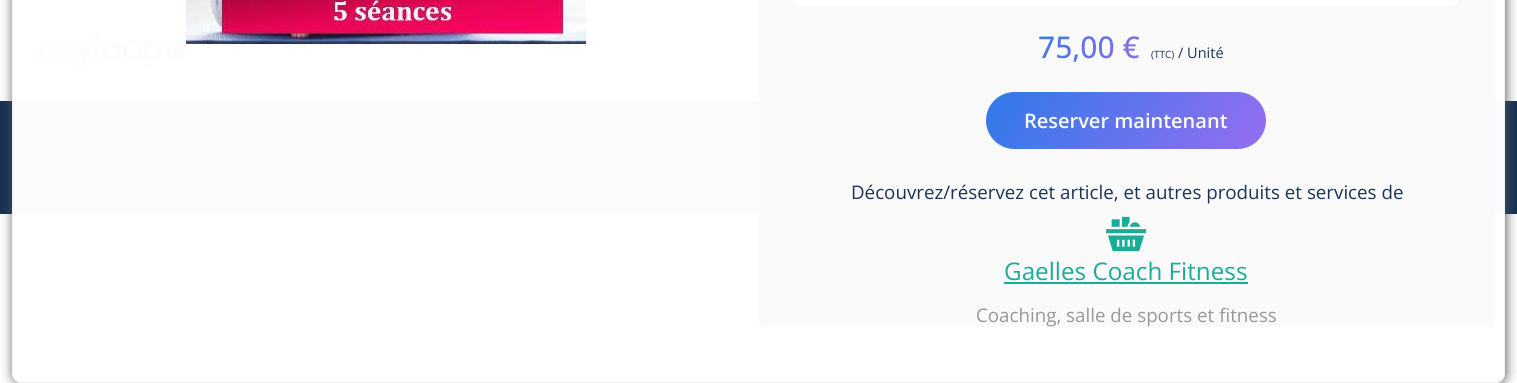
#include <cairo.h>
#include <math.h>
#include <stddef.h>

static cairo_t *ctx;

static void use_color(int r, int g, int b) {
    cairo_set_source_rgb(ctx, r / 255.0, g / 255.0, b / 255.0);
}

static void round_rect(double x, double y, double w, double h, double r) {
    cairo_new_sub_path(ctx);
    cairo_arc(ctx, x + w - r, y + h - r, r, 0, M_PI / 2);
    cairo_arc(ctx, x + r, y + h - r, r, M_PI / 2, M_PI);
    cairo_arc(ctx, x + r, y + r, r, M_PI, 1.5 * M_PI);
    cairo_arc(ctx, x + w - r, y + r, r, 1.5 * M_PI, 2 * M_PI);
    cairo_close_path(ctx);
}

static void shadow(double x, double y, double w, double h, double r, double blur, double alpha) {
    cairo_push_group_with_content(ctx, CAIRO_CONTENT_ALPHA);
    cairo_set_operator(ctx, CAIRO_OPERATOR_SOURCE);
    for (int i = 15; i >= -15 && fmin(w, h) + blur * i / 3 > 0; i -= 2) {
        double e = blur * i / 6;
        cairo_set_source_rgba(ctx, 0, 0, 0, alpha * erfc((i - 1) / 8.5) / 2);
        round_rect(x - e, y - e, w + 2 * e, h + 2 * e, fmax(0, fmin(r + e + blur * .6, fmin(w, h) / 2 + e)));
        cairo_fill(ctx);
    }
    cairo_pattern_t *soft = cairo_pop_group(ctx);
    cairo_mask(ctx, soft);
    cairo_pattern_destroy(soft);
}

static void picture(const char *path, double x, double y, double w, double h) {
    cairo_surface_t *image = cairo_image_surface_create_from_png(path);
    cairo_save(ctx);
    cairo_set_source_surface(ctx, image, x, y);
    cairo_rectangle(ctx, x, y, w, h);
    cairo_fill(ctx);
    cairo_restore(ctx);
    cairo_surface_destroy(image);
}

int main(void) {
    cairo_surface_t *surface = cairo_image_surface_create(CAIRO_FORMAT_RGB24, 1517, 383);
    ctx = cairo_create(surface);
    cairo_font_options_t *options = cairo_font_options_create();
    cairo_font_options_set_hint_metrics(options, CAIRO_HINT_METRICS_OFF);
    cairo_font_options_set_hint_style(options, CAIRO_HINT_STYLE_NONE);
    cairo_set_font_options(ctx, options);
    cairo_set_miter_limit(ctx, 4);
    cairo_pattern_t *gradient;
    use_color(255, 255, 255);
    cairo_paint(ctx);
    picture("img1.png", 78, 100, 1361, 1);
    picture("img2.png", 38, 32, 146, 37);
    use_color(229, 229, 229);
    cairo_rectangle(ctx, 1104, 30, 2, 35);
    cairo_fill(ctx);
    gradient = cairo_pattern_create_linear(1266, -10, 1469, 132);
    cairo_pattern_add_color_stop_rgba(gradient, 0.07, 0.2, 0.463, 0.918, 1);
    cairo_pattern_add_color_stop_rgba(gradient, 1, 0.647, 0.408, 0.949, 1);
    cairo_set_source(ctx, gradient);
    cairo_pattern_destroy(gradient);
    round_rect(1243, 23, 220, 55, 27.5);
    cairo_fill(ctx);
    use_color(20, 48, 81);
    cairo_rectangle(ctx, 0, 101, 1517, 113);
    cairo_fill(ctx);
    cairo_save(ctx);
    cairo_set_fill_rule(ctx, CAIRO_FILL_RULE_EVEN_ODD);
    cairo_new_path(ctx);
    cairo_move_to(ctx, 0, 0);
    cairo_line_to(ctx, 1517, 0);
    cairo_line_to(ctx, 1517, 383);
    cairo_line_to(ctx, 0, 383);
    cairo_close_path(ctx);
    cairo_move_to(ctx, 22, -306);
    cairo_line_to(ctx, 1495, -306);
    cairo_curve_to(ctx, 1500.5, -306, 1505, -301.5, 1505, -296);
    cairo_line_to(ctx, 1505, 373);
    cairo_curve_to(ctx, 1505, 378.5, 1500.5, 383, 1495, 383);
    cairo_line_to(ctx, 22, 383);
    cairo_curve_to(ctx, 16.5, 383, 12, 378.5, 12, 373);
    cairo_line_to(ctx, 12, -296);
    cairo_curve_to(ctx, 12, -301.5, 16.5, -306, 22, -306);
    cairo_close_path(ctx);
    cairo_clip(ctx);
    use_color(85, 85, 85);
    shadow(13, -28, 1493, 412, 10, 6, 0.98);
    cairo_restore(ctx);
    cairo_set_source_rgba(ctx, 1, 1, 1, 0.98);
    round_rect(12, -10, 1493, 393, 10);
    cairo_fill(ctx);
    round_rect(12.5, -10.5, 1492, 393, 9.5);
    cairo_set_source_rgba(ctx, 0.937, 0.937, 0.937, 0.98);
    cairo_set_line_width(ctx, 1);
    cairo_stroke(ctx);
    picture("img3.png", 186, 0, 400, 44);
    cairo_set_source_rgba(ctx, 0.98, 0.98, 0.98, 0.98);
    round_rect(759, -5, 735, 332, 5);
    cairo_fill(ctx);
    use_color(255, 255, 255);
    round_rect(795, -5, 662, 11, 5);
    cairo_fill(ctx);
    cairo_select_font_face(ctx, "Open Sans Medium", CAIRO_FONT_SLANT_NORMAL, CAIRO_FONT_WEIGHT_NORMAL);
    cairo_set_font_size(ctx, 30);
    gradient = cairo_pattern_create_linear(1037, 11, 1157, 95);
    cairo_pattern_add_color_stop_rgba(gradient, 0.07, 0.216, 0.475, 0.918, 1);
    cairo_pattern_add_color_stop_rgba(gradient, 1, 0.655, 0.42, 0.949, 1);
    cairo_set_source(ctx, gradient);
    cairo_pattern_destroy(gradient);
    cairo_move_to(ctx, 1038, 58);
    cairo_show_text(ctx, "75,00 €");
    cairo_select_font_face(ctx, "Open Sans", CAIRO_FONT_SLANT_NORMAL, CAIRO_FONT_WEIGHT_NORMAL);
    cairo_set_font_size(ctx, 10);
    use_color(25, 52, 84);
    cairo_move_to(ctx, 1151, 58);
    cairo_show_text(ctx, "(TTC)");
    cairo_set_font_size(ctx, 14.5);
    cairo_move_to(ctx, 1178, 58);
    cairo_show_text(ctx, "/ Unité");
    gradient = cairo_pattern_create_linear(1019, 45, 1270, 222);
    cairo_pattern_add_color_stop_rgba(gradient, 0.07, 0.216, 0.475, 0.918, 1);
    cairo_pattern_add_color_stop_rgba(gradient, 1, 0.655, 0.42, 0.949, 1);
    cairo_set_source(ctx, gradient);
    cairo_pattern_destroy(gradient);
    round_rect(986, 92, 280, 57, 28.5);
    cairo_fill(ctx);
    cairo_select_font_face(ctx, "Open Sans SemiBold", CAIRO_FONT_SLANT_NORMAL, CAIRO_FONT_WEIGHT_NORMAL);
    cairo_set_font_size(ctx, 20);
    use_color(250, 251, 252);
    cairo_move_to(ctx, 1024, 128);
    cairo_show_text(ctx, "Reserver maintenant");
    cairo_select_font_face(ctx, "Open Sans", CAIRO_FONT_SLANT_NORMAL, CAIRO_FONT_WEIGHT_NORMAL);
    cairo_set_font_size(ctx, 18.75);
    use_color(25, 52, 84);
    cairo_move_to(ctx, 851, 199);
    cairo_show_text(ctx, "Découvrez/réservez cet article, et autres produits et services de");
    picture("img4.png", 1106, 216, 40, 36);
    cairo_set_font_size(ctx, 24.25);
    use_color(27, 172, 149);
    cairo_move_to(ctx, 1004, 280);
    cairo_show_text(ctx, "Gaelles Coach Fitness");
    cairo_rectangle(ctx, 1004, 282, 244, 2);
    cairo_fill(ctx);
    cairo_set_font_size(ctx, 18.75);
    use_color(152, 152, 152);
    cairo_move_to(ctx, 976, 322);
    cairo_show_text(ctx, "Coaching, salle de sports et fitness");
    cairo_surface_write_to_png(surface, "result.png");
    cairo_font_options_destroy(options);
    cairo_destroy(ctx);
    cairo_surface_destroy(surface);
    return 0;
}
